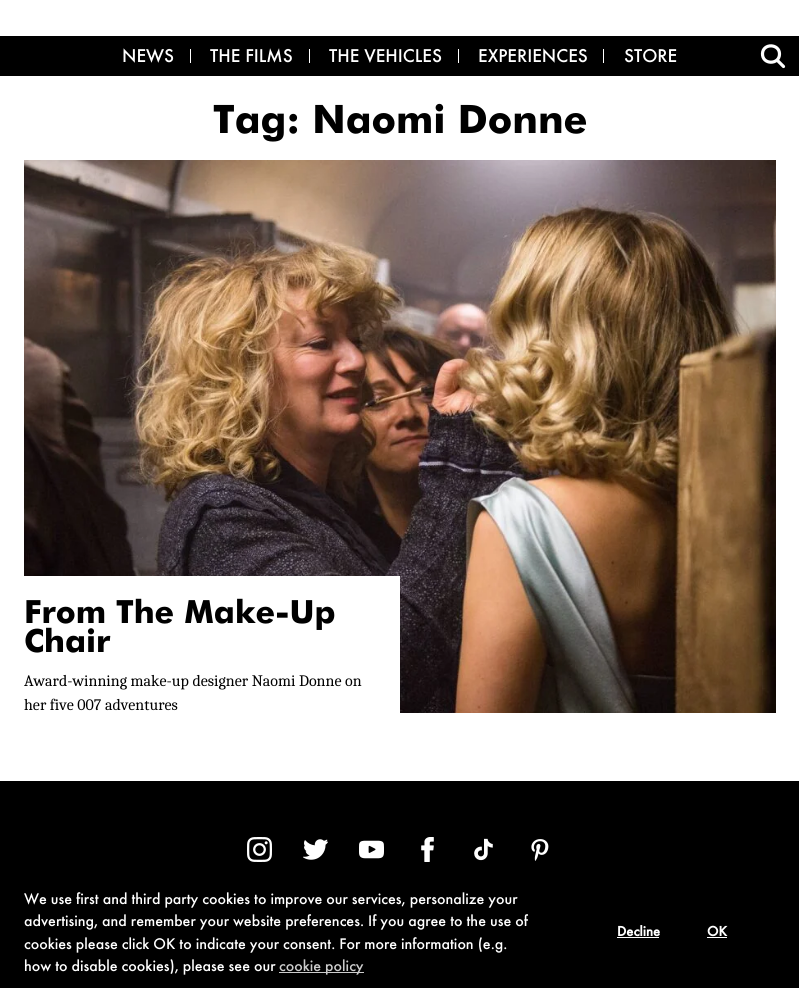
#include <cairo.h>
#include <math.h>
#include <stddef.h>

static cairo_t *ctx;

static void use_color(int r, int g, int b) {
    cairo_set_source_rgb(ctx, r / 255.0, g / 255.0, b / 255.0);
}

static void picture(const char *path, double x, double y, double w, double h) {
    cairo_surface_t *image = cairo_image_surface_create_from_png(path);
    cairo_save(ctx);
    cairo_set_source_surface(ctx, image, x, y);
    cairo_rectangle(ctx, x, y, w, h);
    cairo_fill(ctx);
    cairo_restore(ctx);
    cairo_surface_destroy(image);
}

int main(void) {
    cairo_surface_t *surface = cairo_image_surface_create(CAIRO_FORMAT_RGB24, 799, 988);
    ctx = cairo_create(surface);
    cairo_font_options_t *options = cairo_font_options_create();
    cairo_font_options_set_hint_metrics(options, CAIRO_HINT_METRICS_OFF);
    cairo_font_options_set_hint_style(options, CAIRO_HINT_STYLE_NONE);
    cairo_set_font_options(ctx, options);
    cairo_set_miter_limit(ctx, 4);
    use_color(255, 255, 255);
    cairo_paint(ctx);
    use_color(0, 0, 0);
    cairo_rectangle(ctx, 0, 36, 799, 40);
    cairo_fill(ctx);
    use_color(255, 255, 255);
    cairo_rectangle(ctx, 190, 49, 1, 14);
    cairo_fill(ctx);
    cairo_select_font_face(ctx, "Futura Medium", CAIRO_FONT_SLANT_NORMAL, CAIRO_FONT_WEIGHT_NORMAL);
    cairo_set_font_size(ctx, 19.25);
    cairo_move_to(ctx, 122, 62);
    cairo_show_text(ctx, "NEWS");
    cairo_rectangle(ctx, 309, 49, 1, 14);
    cairo_fill(ctx);
    cairo_move_to(ctx, 210, 62);
    cairo_show_text(ctx, "THE FILMS");
    cairo_rectangle(ctx, 458, 49, 1, 14);
    cairo_fill(ctx);
    cairo_move_to(ctx, 329, 62);
    cairo_show_text(ctx, "THE VEHICLES");
    cairo_rectangle(ctx, 603, 49, 1, 14);
    cairo_fill(ctx);
    cairo_move_to(ctx, 478, 62);
    cairo_show_text(ctx, "EXPERIENCES");
    cairo_move_to(ctx, 624, 62);
    cairo_show_text(ctx, "STORE");
    cairo_new_path(ctx);
    cairo_move_to(ctx, 779.5, 54);
    cairo_curve_to(ctx, 779.5, 43.5, 763, 43, 762.5, 53.5);
    cairo_curve_to(ctx, 762, 65, 779.5, 65, 779.5, 54);
    cairo_close_path(ctx);
    cairo_move_to(ctx, 783.5, 66.5);
    cairo_line_to(ctx, 777, 60);
    cairo_set_line_width(ctx, 3.2);
    cairo_set_line_cap(ctx, CAIRO_LINE_CAP_ROUND);
    cairo_stroke(ctx);
    cairo_select_font_face(ctx, "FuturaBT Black", CAIRO_FONT_SLANT_NORMAL, CAIRO_FONT_WEIGHT_NORMAL);
    cairo_set_font_size(ctx, 39.25);
    use_color(0, 0, 0);
    cairo_move_to(ctx, 213, 133);
    cairo_show_text(ctx, "Tag: Naomi Donne");
    picture("img1.png", 24, 160, 752, 553);
    use_color(255, 255, 255);
    cairo_rectangle(ctx, 24, 576, 376, 137);
    cairo_fill(ctx);
    cairo_set_font_size(ctx, 32);
    use_color(0, 0, 0);
    cairo_move_to(ctx, 24, 623);
    cairo_show_text(ctx, "From The Make-Up");
    cairo_move_to(ctx, 24, 652);
    cairo_show_text(ctx, "Chair");
    cairo_select_font_face(ctx, "Caladea", CAIRO_FONT_SLANT_NORMAL, CAIRO_FONT_WEIGHT_NORMAL);
    cairo_set_font_size(ctx, 16);
    cairo_move_to(ctx, 24, 686);
    cairo_show_text(ctx, "Award-winning make-up designer Naomi Donne on");
    cairo_move_to(ctx, 24, 710);
    cairo_show_text(ctx, "her five 007 adventures");
    cairo_rectangle(ctx, 0, 781, 799, 207);
    cairo_fill(ctx);
    picture("img2.png", 247, 837, 25, 25);
    picture("img3.png", 303, 839, 25, 21);
    picture("img4.png", 359, 840, 25, 19);
    picture("img5.png", 421, 837, 13, 25);
    picture("img6.png", 474, 838, 19, 23);
    picture("img7.png", 531, 839, 18, 22);
    cairo_select_font_face(ctx, "Futura Medium", CAIRO_FONT_SLANT_NORMAL, CAIRO_FONT_WEIGHT_NORMAL);
    use_color(255, 255, 255);
    cairo_move_to(ctx, 24, 904);
    cairo_show_text(ctx, "We use first and third party cookies to improve our services, personalize your");
    cairo_move_to(ctx, 24, 926);
    cairo_show_text(ctx, "advertising, and remember your website preferences. If you agree to the use of");
    cairo_move_to(ctx, 24, 949);
    cairo_show_text(ctx, "cookies please click OK to indicate your consent. For more information (e.g.");
    cairo_move_to(ctx, 24, 971);
    cairo_show_text(ctx, "how to disable cookies), please see our");
    use_color(204, 204, 204);
    cairo_rectangle(ctx, 279, 972, 85, 1);
    cairo_fill(ctx);
    cairo_move_to(ctx, 279, 971);
    cairo_show_text(ctx, "cookie policy");
    cairo_select_font_face(ctx, "Futura", CAIRO_FONT_SLANT_NORMAL, CAIRO_FONT_WEIGHT_BOLD);
    cairo_set_font_size(ctx, 14.5);
    use_color(255, 255, 255);
    cairo_move_to(ctx, 617, 936);
    cairo_show_text(ctx, "Decline");
    cairo_rectangle(ctx, 617, 937, 42, 1);
    cairo_fill(ctx);
    cairo_move_to(ctx, 707, 936);
    cairo_show_text(ctx, "OK");
    cairo_rectangle(ctx, 707, 937, 20, 1);
    cairo_fill(ctx);
    cairo_surface_write_to_png(surface, "result.png");
    cairo_font_options_destroy(options);
    cairo_destroy(ctx);
    cairo_surface_destroy(surface);
    return 0;
}
